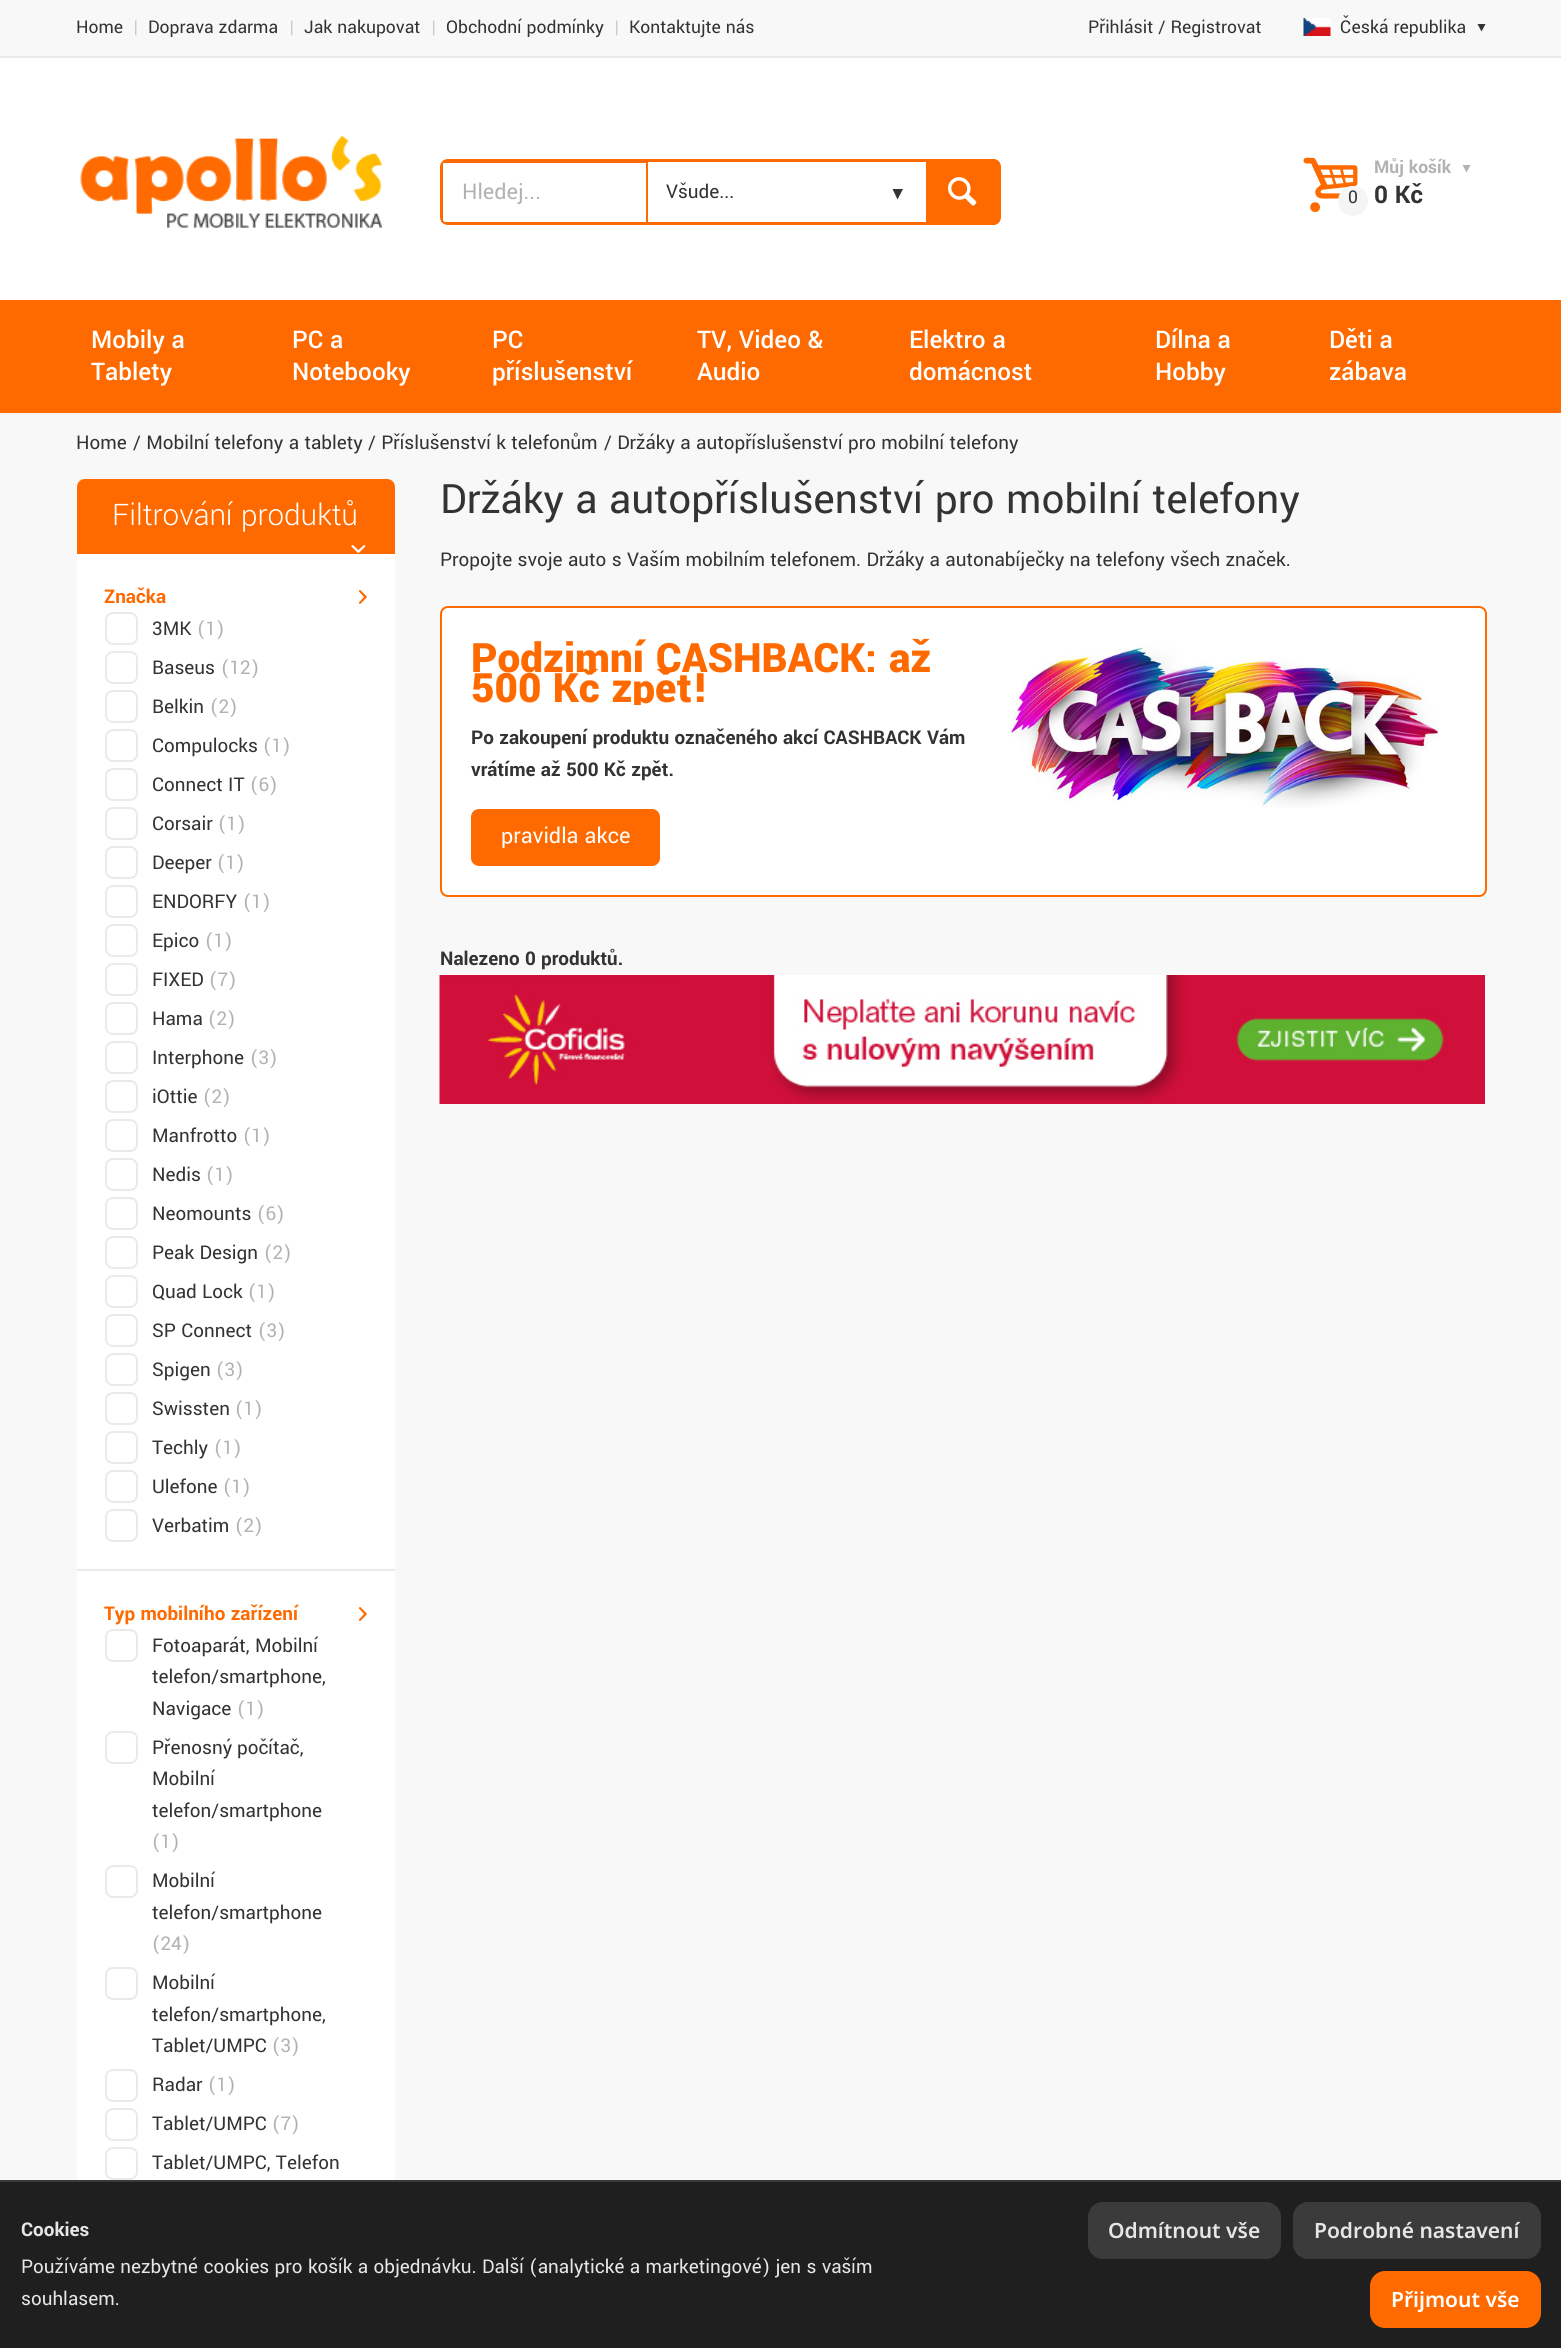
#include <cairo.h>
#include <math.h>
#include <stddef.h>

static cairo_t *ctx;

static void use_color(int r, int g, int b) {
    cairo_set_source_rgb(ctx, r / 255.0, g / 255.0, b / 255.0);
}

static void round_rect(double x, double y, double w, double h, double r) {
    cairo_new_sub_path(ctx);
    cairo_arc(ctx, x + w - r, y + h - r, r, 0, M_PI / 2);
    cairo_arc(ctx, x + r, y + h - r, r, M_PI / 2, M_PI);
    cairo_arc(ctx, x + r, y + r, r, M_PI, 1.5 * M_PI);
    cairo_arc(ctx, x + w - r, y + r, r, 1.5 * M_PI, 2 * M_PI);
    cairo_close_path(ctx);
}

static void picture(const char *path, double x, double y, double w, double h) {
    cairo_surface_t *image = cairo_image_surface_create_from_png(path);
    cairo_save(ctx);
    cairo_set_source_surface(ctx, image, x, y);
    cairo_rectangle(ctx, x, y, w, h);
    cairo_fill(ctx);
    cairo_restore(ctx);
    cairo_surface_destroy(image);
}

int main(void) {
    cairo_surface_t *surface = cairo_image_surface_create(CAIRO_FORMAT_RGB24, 1561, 2348);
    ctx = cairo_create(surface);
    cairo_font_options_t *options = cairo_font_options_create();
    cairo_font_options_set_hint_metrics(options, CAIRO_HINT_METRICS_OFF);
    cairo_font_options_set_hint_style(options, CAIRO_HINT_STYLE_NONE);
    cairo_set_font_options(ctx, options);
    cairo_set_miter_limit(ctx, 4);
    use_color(255, 255, 255);
    cairo_paint(ctx);
    use_color(248, 248, 248);
    cairo_rectangle(ctx, 0, 0, 1561, 56);
    cairo_fill(ctx);
    cairo_select_font_face(ctx, "Yantramanav", CAIRO_FONT_SLANT_NORMAL, CAIRO_FONT_WEIGHT_NORMAL);
    cairo_set_font_size(ctx, 19.5);
    use_color(51, 51, 51);
    cairo_move_to(ctx, 76, 33);
    cairo_show_text(ctx, "Home");
    use_color(200, 200, 200);
    cairo_move_to(ctx, 133, 33);
    cairo_show_text(ctx, "|");
    use_color(51, 51, 51);
    cairo_move_to(ctx, 148, 33);
    cairo_show_text(ctx, "Doprava zdarma");
    use_color(200, 200, 200);
    cairo_move_to(ctx, 289, 33);
    cairo_show_text(ctx, "|");
    use_color(51, 51, 51);
    cairo_move_to(ctx, 304, 33);
    cairo_show_text(ctx, "Jak nakupovat");
    use_color(200, 200, 200);
    cairo_move_to(ctx, 431, 33);
    cairo_show_text(ctx, "|");
    use_color(51, 51, 51);
    cairo_move_to(ctx, 446, 33);
    cairo_show_text(ctx, "Obchodní podmínky");
    use_color(200, 200, 200);
    cairo_move_to(ctx, 614, 33);
    cairo_show_text(ctx, "|");
    use_color(51, 51, 51);
    cairo_move_to(ctx, 629, 33);
    cairo_show_text(ctx, "Kontaktujte nás");
    cairo_move_to(ctx, 1088, 33);
    cairo_show_text(ctx, "Přihlásit / Registrovat");
    picture("img1.png", 1303, 18, 28, 18);
    cairo_move_to(ctx, 1340, 33);
    cairo_show_text(ctx, "Česká republika");
    cairo_new_path(ctx);
    cairo_move_to(ctx, 1481.5, 31.5);
    cairo_line_to(ctx, 1477.5, 24);
    cairo_line_to(ctx, 1485.5, 24);
    cairo_close_path(ctx);
    cairo_fill(ctx);
    use_color(234, 234, 234);
    cairo_rectangle(ctx, 0, 56, 1561, 2);
    cairo_fill(ctx);
    picture("img2.png", 80, 135, 303, 93);
    cairo_new_path(ctx);
    cairo_move_to(ctx, 448, 160);
    cairo_line_to(ctx, 647, 160);
    cairo_line_to(ctx, 647, 224);
    cairo_line_to(ctx, 448, 224);
    cairo_curve_to(ctx, 444, 224, 441, 221, 441, 217);
    cairo_line_to(ctx, 441, 167);
    cairo_curve_to(ctx, 441, 163, 444, 160, 448, 160);
    cairo_close_path(ctx);
    use_color(255, 106, 0);
    cairo_stroke(ctx);
    cairo_rectangle(ctx, 444, 161, 204, 2);
    cairo_fill(ctx);
    cairo_rectangle(ctx, 444, 222, 204, 2);
    cairo_fill(ctx);
    cairo_rectangle(ctx, 441, 164, 2, 58);
    cairo_fill(ctx);
    cairo_set_font_size(ctx, 24);
    use_color(178, 178, 178);
    cairo_move_to(ctx, 462, 199);
    cairo_show_text(ctx, "Hledej...");
    use_color(255, 106, 0);
    cairo_rectangle(ctx, 648, 159, 278, 3);
    cairo_fill(ctx);
    cairo_rectangle(ctx, 648, 222, 278, 3);
    cairo_fill(ctx);
    cairo_set_font_size(ctx, 21);
    use_color(51, 51, 51);
    cairo_move_to(ctx, 666, 198);
    cairo_show_text(ctx, "Všude...");
    cairo_new_path(ctx);
    cairo_move_to(ctx, 897.5, 199.5);
    cairo_line_to(ctx, 892.5, 189);
    cairo_line_to(ctx, 903, 189);
    cairo_close_path(ctx);
    cairo_fill(ctx);
    use_color(255, 106, 0);
    cairo_new_path(ctx);
    cairo_move_to(ctx, 926, 159);
    cairo_line_to(ctx, 993, 159);
    cairo_curve_to(ctx, 997.5, 159, 1001, 162.5, 1001, 167);
    cairo_line_to(ctx, 1001, 217);
    cairo_curve_to(ctx, 1001, 221.5, 997.5, 225, 993, 225);
    cairo_line_to(ctx, 926, 225);
    cairo_close_path(ctx);
    cairo_fill(ctx);
    cairo_set_fill_rule(ctx, CAIRO_FILL_RULE_EVEN_ODD);
    cairo_new_path(ctx);
    cairo_move_to(ctx, 926, 159);
    cairo_line_to(ctx, 993, 159);
    cairo_curve_to(ctx, 997, 159, 1000, 162, 1000, 166);
    cairo_line_to(ctx, 1000, 218);
    cairo_curve_to(ctx, 1000, 222, 997, 225, 993, 225);
    cairo_line_to(ctx, 926, 225);
    cairo_close_path(ctx);
    cairo_move_to(ctx, 926, 162);
    cairo_line_to(ctx, 993, 162);
    cairo_curve_to(ctx, 995, 162, 998, 164, 998, 166);
    cairo_line_to(ctx, 998, 218);
    cairo_curve_to(ctx, 998, 220, 995, 222, 993, 222);
    cairo_line_to(ctx, 926, 222);
    cairo_close_path(ctx);
    cairo_fill(ctx);
    picture("img3.png", 948, 177, 29, 29);
    picture("img4.png", 1303, 157, 55, 55);
    cairo_select_font_face(ctx, "Yantramanav", CAIRO_FONT_SLANT_NORMAL, CAIRO_FONT_WEIGHT_BOLD);
    cairo_set_font_size(ctx, 19.5);
    use_color(178, 178, 178);
    cairo_move_to(ctx, 1374, 173);
    cairo_show_text(ctx, "Můj košík");
    cairo_set_fill_rule(ctx, CAIRO_FILL_RULE_WINDING);
    cairo_new_path(ctx);
    cairo_move_to(ctx, 1466.5, 172.5);
    cairo_line_to(ctx, 1462.5, 165);
    cairo_line_to(ctx, 1470.5, 165);
    cairo_close_path(ctx);
    cairo_fill(ctx);
    use_color(245, 245, 245);
    cairo_arc(ctx, 1353, 201, 15, 0, 2 * M_PI);
    cairo_fill(ctx);
    cairo_select_font_face(ctx, "Yantramanav", CAIRO_FONT_SLANT_NORMAL, CAIRO_FONT_WEIGHT_NORMAL);
    use_color(51, 51, 51);
    cairo_move_to(ctx, 1348, 203);
    cairo_show_text(ctx, "0");
    cairo_select_font_face(ctx, "Yantramanav", CAIRO_FONT_SLANT_NORMAL, CAIRO_FONT_WEIGHT_BOLD);
    cairo_set_font_size(ctx, 27);
    cairo_move_to(ctx, 1374, 203);
    cairo_show_text(ctx, "0 Kč");
    use_color(255, 106, 0);
    cairo_rectangle(ctx, 0, 300, 1561, 113);
    cairo_fill(ctx);
    cairo_select_font_face(ctx, "Yantramanav Medium", CAIRO_FONT_SLANT_NORMAL, CAIRO_FONT_WEIGHT_NORMAL);
    use_color(255, 255, 255);
    cairo_move_to(ctx, 91, 348);
    cairo_show_text(ctx, "Mobily a");
    cairo_move_to(ctx, 91, 380);
    cairo_show_text(ctx, "Tablety");
    cairo_move_to(ctx, 292, 348);
    cairo_show_text(ctx, "PC a");
    cairo_move_to(ctx, 292, 380);
    cairo_show_text(ctx, "Notebooky");
    cairo_move_to(ctx, 492, 348);
    cairo_show_text(ctx, "PC");
    cairo_move_to(ctx, 492, 380);
    cairo_show_text(ctx, "příslušenství");
    cairo_move_to(ctx, 697, 348);
    cairo_show_text(ctx, "TV, Video &");
    cairo_move_to(ctx, 697, 380);
    cairo_show_text(ctx, "Audio");
    cairo_move_to(ctx, 909, 348);
    cairo_show_text(ctx, "Elektro a");
    cairo_move_to(ctx, 909, 380);
    cairo_show_text(ctx, "domácnost");
    cairo_move_to(ctx, 1155, 348);
    cairo_show_text(ctx, "Dílna a");
    cairo_move_to(ctx, 1155, 380);
    cairo_show_text(ctx, "Hobby");
    cairo_move_to(ctx, 1329, 348);
    cairo_show_text(ctx, "Děti a");
    cairo_move_to(ctx, 1329, 380);
    cairo_show_text(ctx, "zábava");
    use_color(248, 248, 248);
    cairo_rectangle(ctx, 0, 413, 1561, 1767);
    cairo_fill(ctx);
    use_color(255, 255, 255);
    round_rect(77, 479, 318, 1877, 8);
    cairo_fill(ctx);
    use_color(31, 31, 31);
    cairo_rectangle(ctx, 0, 2182, 1561, 166);
    cairo_fill(ctx);
    use_color(58, 58, 58);
    cairo_rectangle(ctx, 0, 2180, 1561, 2);
    cairo_fill(ctx);
    cairo_select_font_face(ctx, "Yantramanav", CAIRO_FONT_SLANT_NORMAL, CAIRO_FONT_WEIGHT_BOLD);
    cairo_set_font_size(ctx, 21);
    use_color(230, 230, 230);
    cairo_move_to(ctx, 21, 2236);
    cairo_show_text(ctx, "Cookies");
    cairo_select_font_face(ctx, "Yantramanav", CAIRO_FONT_SLANT_NORMAL, CAIRO_FONT_WEIGHT_NORMAL);
    cairo_move_to(ctx, 21, 2273);
    cairo_show_text(ctx, "Používáme nezbytné cookies pro košík a objednávku. Další (analytické a marketingové) jen s vaším");
    cairo_move_to(ctx, 21, 2305);
    cairo_show_text(ctx, "souhlasem.");
    use_color(59, 59, 59);
    round_rect(1088, 2202, 193, 57, 15);
    cairo_fill(ctx);
    cairo_select_font_face(ctx, "Noto Sans SemiBold", CAIRO_FONT_SLANT_NORMAL, CAIRO_FONT_WEIGHT_NORMAL);
    use_color(230, 230, 230);
    cairo_move_to(ctx, 1108, 2238);
    cairo_show_text(ctx, "Odmítnout vše");
    use_color(59, 59, 59);
    round_rect(1293, 2202, 248, 57, 15);
    cairo_fill(ctx);
    use_color(230, 230, 230);
    cairo_move_to(ctx, 1314, 2238);
    cairo_show_text(ctx, "Podrobné nastavení");
    use_color(255, 106, 0);
    round_rect(1370, 2271, 171, 57, 15);
    cairo_fill(ctx);
    use_color(255, 255, 255);
    cairo_move_to(ctx, 1391, 2307);
    cairo_show_text(ctx, "Přijmout vše");
    cairo_select_font_face(ctx, "Yantramanav", CAIRO_FONT_SLANT_NORMAL, CAIRO_FONT_WEIGHT_NORMAL);
    use_color(51, 51, 51);
    cairo_move_to(ctx, 76, 449);
    cairo_show_text(ctx, "Home");
    cairo_move_to(ctx, 133, 449);
    cairo_show_text(ctx, "/ Mobilní telefony a tablety");
    cairo_move_to(ctx, 368, 449);
    cairo_show_text(ctx, "/ Příslušenství k telefonům");
    cairo_move_to(ctx, 604, 449);
    cairo_show_text(ctx, "/ Držáky a autopříslušenství pro mobilní telefony");
    use_color(255, 106, 0);
    cairo_new_path(ctx);
    cairo_move_to(ctx, 85, 479);
    cairo_line_to(ctx, 387, 479);
    cairo_curve_to(ctx, 391.5, 479, 395, 482.5, 395, 487);
    cairo_line_to(ctx, 395, 554);
    cairo_line_to(ctx, 77, 554);
    cairo_line_to(ctx, 77, 487);
    cairo_curve_to(ctx, 77, 482.5, 80.5, 479, 85, 479);
    cairo_close_path(ctx);
    cairo_fill(ctx);
    cairo_select_font_face(ctx, "Yantramanav Light", CAIRO_FONT_SLANT_NORMAL, CAIRO_FONT_WEIGHT_NORMAL);
    cairo_set_font_size(ctx, 33);
    use_color(255, 255, 255);
    cairo_move_to(ctx, 112, 525);
    cairo_show_text(ctx, "Filtrování produktů");
    picture("img5.png", 351, 545, 15, 8);
    cairo_select_font_face(ctx, "Yantramanav", CAIRO_FONT_SLANT_NORMAL, CAIRO_FONT_WEIGHT_BOLD);
    cairo_set_font_size(ctx, 21);
    use_color(255, 106, 0);
    cairo_move_to(ctx, 104, 603);
    cairo_show_text(ctx, "Značka");
    picture("img6.png", 358, 590, 9, 14);
    round_rect(106, 613, 31, 31, 7);
    use_color(234, 234, 234);
    cairo_stroke(ctx);
    cairo_select_font_face(ctx, "Yantramanav", CAIRO_FONT_SLANT_NORMAL, CAIRO_FONT_WEIGHT_NORMAL);
    use_color(51, 51, 51);
    cairo_move_to(ctx, 152, 635);
    cairo_show_text(ctx, "3MK");
    use_color(178, 178, 178);
    cairo_move_to(ctx, 197, 635);
    cairo_show_text(ctx, "(1)");
    round_rect(106, 652, 31, 31, 7);
    use_color(234, 234, 234);
    cairo_stroke(ctx);
    use_color(51, 51, 51);
    cairo_move_to(ctx, 152, 674);
    cairo_show_text(ctx, "Baseus");
    use_color(178, 178, 178);
    cairo_move_to(ctx, 221, 674);
    cairo_show_text(ctx, "(12)");
    round_rect(106, 691, 31, 31, 7);
    use_color(234, 234, 234);
    cairo_stroke(ctx);
    use_color(51, 51, 51);
    cairo_move_to(ctx, 152, 713);
    cairo_show_text(ctx, "Belkin");
    use_color(178, 178, 178);
    cairo_move_to(ctx, 210, 713);
    cairo_show_text(ctx, "(2)");
    round_rect(106, 730, 31, 31, 7);
    use_color(234, 234, 234);
    cairo_stroke(ctx);
    use_color(51, 51, 51);
    cairo_move_to(ctx, 152, 752);
    cairo_show_text(ctx, "Compulocks");
    use_color(178, 178, 178);
    cairo_move_to(ctx, 263, 752);
    cairo_show_text(ctx, "(1)");
    round_rect(106, 769, 31, 31, 7);
    use_color(234, 234, 234);
    cairo_stroke(ctx);
    use_color(51, 51, 51);
    cairo_move_to(ctx, 152, 791);
    cairo_show_text(ctx, "Connect IT");
    use_color(178, 178, 178);
    cairo_move_to(ctx, 250, 791);
    cairo_show_text(ctx, "(6)");
    round_rect(106, 808, 31, 31, 7);
    use_color(234, 234, 234);
    cairo_stroke(ctx);
    use_color(51, 51, 51);
    cairo_move_to(ctx, 152, 830);
    cairo_show_text(ctx, "Corsair");
    use_color(178, 178, 178);
    cairo_move_to(ctx, 218, 830);
    cairo_show_text(ctx, "(1)");
    round_rect(106, 847, 31, 31, 7);
    use_color(234, 234, 234);
    cairo_stroke(ctx);
    use_color(51, 51, 51);
    cairo_move_to(ctx, 152, 869);
    cairo_show_text(ctx, "Deeper");
    use_color(178, 178, 178);
    cairo_move_to(ctx, 217, 869);
    cairo_show_text(ctx, "(1)");
    round_rect(106, 886, 31, 31, 7);
    use_color(234, 234, 234);
    cairo_stroke(ctx);
    use_color(51, 51, 51);
    cairo_move_to(ctx, 152, 908);
    cairo_show_text(ctx, "ENDORFY");
    use_color(178, 178, 178);
    cairo_move_to(ctx, 243, 908);
    cairo_show_text(ctx, "(1)");
    round_rect(106, 925, 31, 31, 7);
    use_color(234, 234, 234);
    cairo_stroke(ctx);
    use_color(51, 51, 51);
    cairo_move_to(ctx, 152, 947);
    cairo_show_text(ctx, "Epico");
    use_color(178, 178, 178);
    cairo_move_to(ctx, 205, 947);
    cairo_show_text(ctx, "(1)");
    round_rect(106, 964, 31, 31, 7);
    use_color(234, 234, 234);
    cairo_stroke(ctx);
    use_color(51, 51, 51);
    cairo_move_to(ctx, 152, 986);
    cairo_show_text(ctx, "FIXED");
    use_color(178, 178, 178);
    cairo_move_to(ctx, 209, 986);
    cairo_show_text(ctx, "(7)");
    round_rect(106, 1003, 31, 31, 7);
    use_color(234, 234, 234);
    cairo_stroke(ctx);
    use_color(51, 51, 51);
    cairo_move_to(ctx, 152, 1025);
    cairo_show_text(ctx, "Hama");
    use_color(178, 178, 178);
    cairo_move_to(ctx, 208, 1025);
    cairo_show_text(ctx, "(2)");
    round_rect(106, 1042, 31, 31, 7);
    use_color(234, 234, 234);
    cairo_stroke(ctx);
    use_color(51, 51, 51);
    cairo_move_to(ctx, 152, 1064);
    cairo_show_text(ctx, "Interphone");
    use_color(178, 178, 178);
    cairo_move_to(ctx, 250, 1064);
    cairo_show_text(ctx, "(3)");
    round_rect(106, 1081, 31, 31, 7);
    use_color(234, 234, 234);
    cairo_stroke(ctx);
    use_color(51, 51, 51);
    cairo_move_to(ctx, 152, 1103);
    cairo_show_text(ctx, "iOttie");
    use_color(178, 178, 178);
    cairo_move_to(ctx, 203, 1103);
    cairo_show_text(ctx, "(2)");
    round_rect(106, 1120, 31, 31, 7);
    use_color(234, 234, 234);
    cairo_stroke(ctx);
    use_color(51, 51, 51);
    cairo_move_to(ctx, 152, 1142);
    cairo_show_text(ctx, "Manfrotto");
    use_color(178, 178, 178);
    cairo_move_to(ctx, 243, 1142);
    cairo_show_text(ctx, "(1)");
    round_rect(106, 1159, 31, 31, 7);
    use_color(234, 234, 234);
    cairo_stroke(ctx);
    use_color(51, 51, 51);
    cairo_move_to(ctx, 152, 1181);
    cairo_show_text(ctx, "Nedis");
    use_color(178, 178, 178);
    cairo_move_to(ctx, 206, 1181);
    cairo_show_text(ctx, "(1)");
    round_rect(106, 1198, 31, 31, 7);
    use_color(234, 234, 234);
    cairo_stroke(ctx);
    use_color(51, 51, 51);
    cairo_move_to(ctx, 152, 1220);
    cairo_show_text(ctx, "Neomounts");
    use_color(178, 178, 178);
    cairo_move_to(ctx, 257, 1220);
    cairo_show_text(ctx, "(6)");
    round_rect(106, 1237, 31, 31, 7);
    use_color(234, 234, 234);
    cairo_stroke(ctx);
    use_color(51, 51, 51);
    cairo_move_to(ctx, 152, 1259);
    cairo_show_text(ctx, "Peak Design");
    use_color(178, 178, 178);
    cairo_move_to(ctx, 264, 1259);
    cairo_show_text(ctx, "(2)");
    round_rect(106, 1276, 31, 31, 7);
    use_color(234, 234, 234);
    cairo_stroke(ctx);
    use_color(51, 51, 51);
    cairo_move_to(ctx, 152, 1298);
    cairo_show_text(ctx, "Quad Lock");
    use_color(178, 178, 178);
    cairo_move_to(ctx, 248, 1298);
    cairo_show_text(ctx, "(1)");
    round_rect(106, 1315, 31, 31, 7);
    use_color(234, 234, 234);
    cairo_stroke(ctx);
    use_color(51, 51, 51);
    cairo_move_to(ctx, 152, 1337);
    cairo_show_text(ctx, "SP Connect");
    use_color(178, 178, 178);
    cairo_move_to(ctx, 258, 1337);
    cairo_show_text(ctx, "(3)");
    round_rect(106, 1354, 31, 31, 7);
    use_color(234, 234, 234);
    cairo_stroke(ctx);
    use_color(51, 51, 51);
    cairo_move_to(ctx, 152, 1376);
    cairo_show_text(ctx, "Spigen");
    use_color(178, 178, 178);
    cairo_move_to(ctx, 216, 1376);
    cairo_show_text(ctx, "(3)");
    round_rect(106, 1393, 31, 31, 7);
    use_color(234, 234, 234);
    cairo_stroke(ctx);
    use_color(51, 51, 51);
    cairo_move_to(ctx, 152, 1415);
    cairo_show_text(ctx, "Swissten");
    use_color(178, 178, 178);
    cairo_move_to(ctx, 235, 1415);
    cairo_show_text(ctx, "(1)");
    round_rect(106, 1432, 31, 31, 7);
    use_color(234, 234, 234);
    cairo_stroke(ctx);
    use_color(51, 51, 51);
    cairo_move_to(ctx, 152, 1454);
    cairo_show_text(ctx, "Techly");
    use_color(178, 178, 178);
    cairo_move_to(ctx, 214, 1454);
    cairo_show_text(ctx, "(1)");
    round_rect(106, 1471, 31, 31, 7);
    use_color(234, 234, 234);
    cairo_stroke(ctx);
    use_color(51, 51, 51);
    cairo_move_to(ctx, 152, 1493);
    cairo_show_text(ctx, "Ulefone");
    use_color(178, 178, 178);
    cairo_move_to(ctx, 223, 1493);
    cairo_show_text(ctx, "(1)");
    round_rect(106, 1510, 31, 31, 7);
    use_color(234, 234, 234);
    cairo_stroke(ctx);
    use_color(51, 51, 51);
    cairo_move_to(ctx, 152, 1532);
    cairo_show_text(ctx, "Verbatim");
    use_color(178, 178, 178);
    cairo_move_to(ctx, 235, 1532);
    cairo_show_text(ctx, "(2)");
    use_color(234, 234, 234);
    cairo_rectangle(ctx, 77, 1569, 318, 2);
    cairo_fill(ctx);
    cairo_select_font_face(ctx, "Yantramanav", CAIRO_FONT_SLANT_NORMAL, CAIRO_FONT_WEIGHT_BOLD);
    use_color(255, 106, 0);
    cairo_move_to(ctx, 104, 1620);
    cairo_show_text(ctx, "Typ mobilního zařízení");
    picture("img6.png", 358, 1607, 9, 14);
    round_rect(106, 1630, 31, 31, 7);
    use_color(234, 234, 234);
    cairo_stroke(ctx);
    cairo_select_font_face(ctx, "Yantramanav", CAIRO_FONT_SLANT_NORMAL, CAIRO_FONT_WEIGHT_NORMAL);
    use_color(51, 51, 51);
    cairo_move_to(ctx, 152, 1652);
    cairo_show_text(ctx, "Fotoaparát, Mobilní");
    cairo_move_to(ctx, 152, 1683);
    cairo_show_text(ctx, "telefon/smartphone,");
    cairo_move_to(ctx, 152, 1715);
    cairo_show_text(ctx, "Navigace");
    use_color(178, 178, 178);
    cairo_move_to(ctx, 237, 1715);
    cairo_show_text(ctx, "(1)");
    round_rect(106, 1732, 31, 31, 7);
    use_color(234, 234, 234);
    cairo_stroke(ctx);
    use_color(51, 51, 51);
    cairo_move_to(ctx, 152, 1754);
    cairo_show_text(ctx, "Přenosný počítač,");
    cairo_move_to(ctx, 152, 1785);
    cairo_show_text(ctx, "Mobilní");
    cairo_move_to(ctx, 152, 1817);
    cairo_show_text(ctx, "telefon/smartphone");
    use_color(178, 178, 178);
    cairo_move_to(ctx, 152, 1848);
    cairo_show_text(ctx, "(1)");
    round_rect(106, 1866, 31, 31, 7);
    use_color(234, 234, 234);
    cairo_stroke(ctx);
    use_color(51, 51, 51);
    cairo_move_to(ctx, 152, 1887);
    cairo_show_text(ctx, "Mobilní");
    cairo_move_to(ctx, 152, 1919);
    cairo_show_text(ctx, "telefon/smartphone");
    use_color(178, 178, 178);
    cairo_move_to(ctx, 152, 1950);
    cairo_show_text(ctx, "(24)");
    round_rect(106, 1968, 31, 31, 7);
    use_color(234, 234, 234);
    cairo_stroke(ctx);
    use_color(51, 51, 51);
    cairo_move_to(ctx, 152, 1989);
    cairo_show_text(ctx, "Mobilní");
    cairo_move_to(ctx, 152, 2021);
    cairo_show_text(ctx, "telefon/smartphone,");
    cairo_move_to(ctx, 152, 2052);
    cairo_show_text(ctx, "Tablet/UMPC");
    use_color(178, 178, 178);
    cairo_move_to(ctx, 272, 2052);
    cairo_show_text(ctx, "(3)");
    round_rect(106, 2070, 31, 31, 7);
    use_color(234, 234, 234);
    cairo_stroke(ctx);
    use_color(51, 51, 51);
    cairo_move_to(ctx, 152, 2091);
    cairo_show_text(ctx, "Radar");
    use_color(178, 178, 178);
    cairo_move_to(ctx, 208, 2091);
    cairo_show_text(ctx, "(1)");
    round_rect(106, 2109, 31, 31, 7);
    use_color(234, 234, 234);
    cairo_stroke(ctx);
    use_color(51, 51, 51);
    cairo_move_to(ctx, 152, 2130);
    cairo_show_text(ctx, "Tablet/UMPC");
    use_color(178, 178, 178);
    cairo_move_to(ctx, 272, 2130);
    cairo_show_text(ctx, "(7)");
    round_rect(106, 2148, 31, 31, 7);
    use_color(234, 234, 234);
    cairo_stroke(ctx);
    use_color(51, 51, 51);
    cairo_move_to(ctx, 152, 2169);
    cairo_show_text(ctx, "Tablet/UMPC, Telefon");
    cairo_set_font_size(ctx, 45);
    cairo_move_to(ctx, 440, 513);
    cairo_show_text(ctx, "Držáky a autopříslušenství pro mobilní telefony");
    cairo_set_font_size(ctx, 21);
    cairo_move_to(ctx, 440, 566);
    cairo_show_text(ctx, "Propojte svoje auto s Vaším mobilním telefonem. Držáky a autonabíječky na telefony všech značek.");
    use_color(255, 255, 255);
    round_rect(441, 607, 1045, 289, 7);
    cairo_fill_preserve(ctx);
    use_color(255, 106, 0);
    cairo_stroke(ctx);
    cairo_select_font_face(ctx, "Yantramanav Black", CAIRO_FONT_SLANT_NORMAL, CAIRO_FONT_WEIGHT_NORMAL);
    cairo_set_font_size(ctx, 45);
    cairo_move_to(ctx, 471, 672);
    cairo_show_text(ctx, "Podzimní CASHBACK: až");
    cairo_save(ctx);
    cairo_rectangle(ctx, 471, 638, 534, 67);
    cairo_clip(ctx);
    cairo_move_to(ctx, 471, 702);
    cairo_show_text(ctx, "500 Kč zpět!");
    cairo_restore(ctx);
    picture("img7.png", 1011, 644, 428, 164);
    cairo_select_font_face(ctx, "Yantramanav", CAIRO_FONT_SLANT_NORMAL, CAIRO_FONT_WEIGHT_BOLD);
    cairo_set_font_size(ctx, 21);
    use_color(51, 51, 51);
    cairo_move_to(ctx, 471, 744);
    cairo_show_text(ctx, "Po zakoupení produktu označeného akcí CASHBACK Vám");
    cairo_move_to(ctx, 471, 776);
    cairo_show_text(ctx, "vrátíme až 500 Kč zpět.");
    use_color(255, 106, 0);
    round_rect(471, 809, 189, 57, 8);
    cairo_fill(ctx);
    cairo_select_font_face(ctx, "Yantramanav", CAIRO_FONT_SLANT_NORMAL, CAIRO_FONT_WEIGHT_NORMAL);
    cairo_set_font_size(ctx, 24);
    use_color(255, 255, 255);
    cairo_move_to(ctx, 501, 843);
    cairo_show_text(ctx, "pravidla akce");
    cairo_select_font_face(ctx, "Yantramanav", CAIRO_FONT_SLANT_NORMAL, CAIRO_FONT_WEIGHT_BOLD);
    cairo_set_font_size(ctx, 21);
    use_color(51, 51, 51);
    cairo_move_to(ctx, 440, 965);
    cairo_show_text(ctx, "Nalezeno 0 produktů.");
    picture("img8.png", 439, 975, 1046, 129);
    cairo_surface_write_to_png(surface, "result.png");
    cairo_font_options_destroy(options);
    cairo_destroy(ctx);
    cairo_surface_destroy(surface);
    return 0;
}
